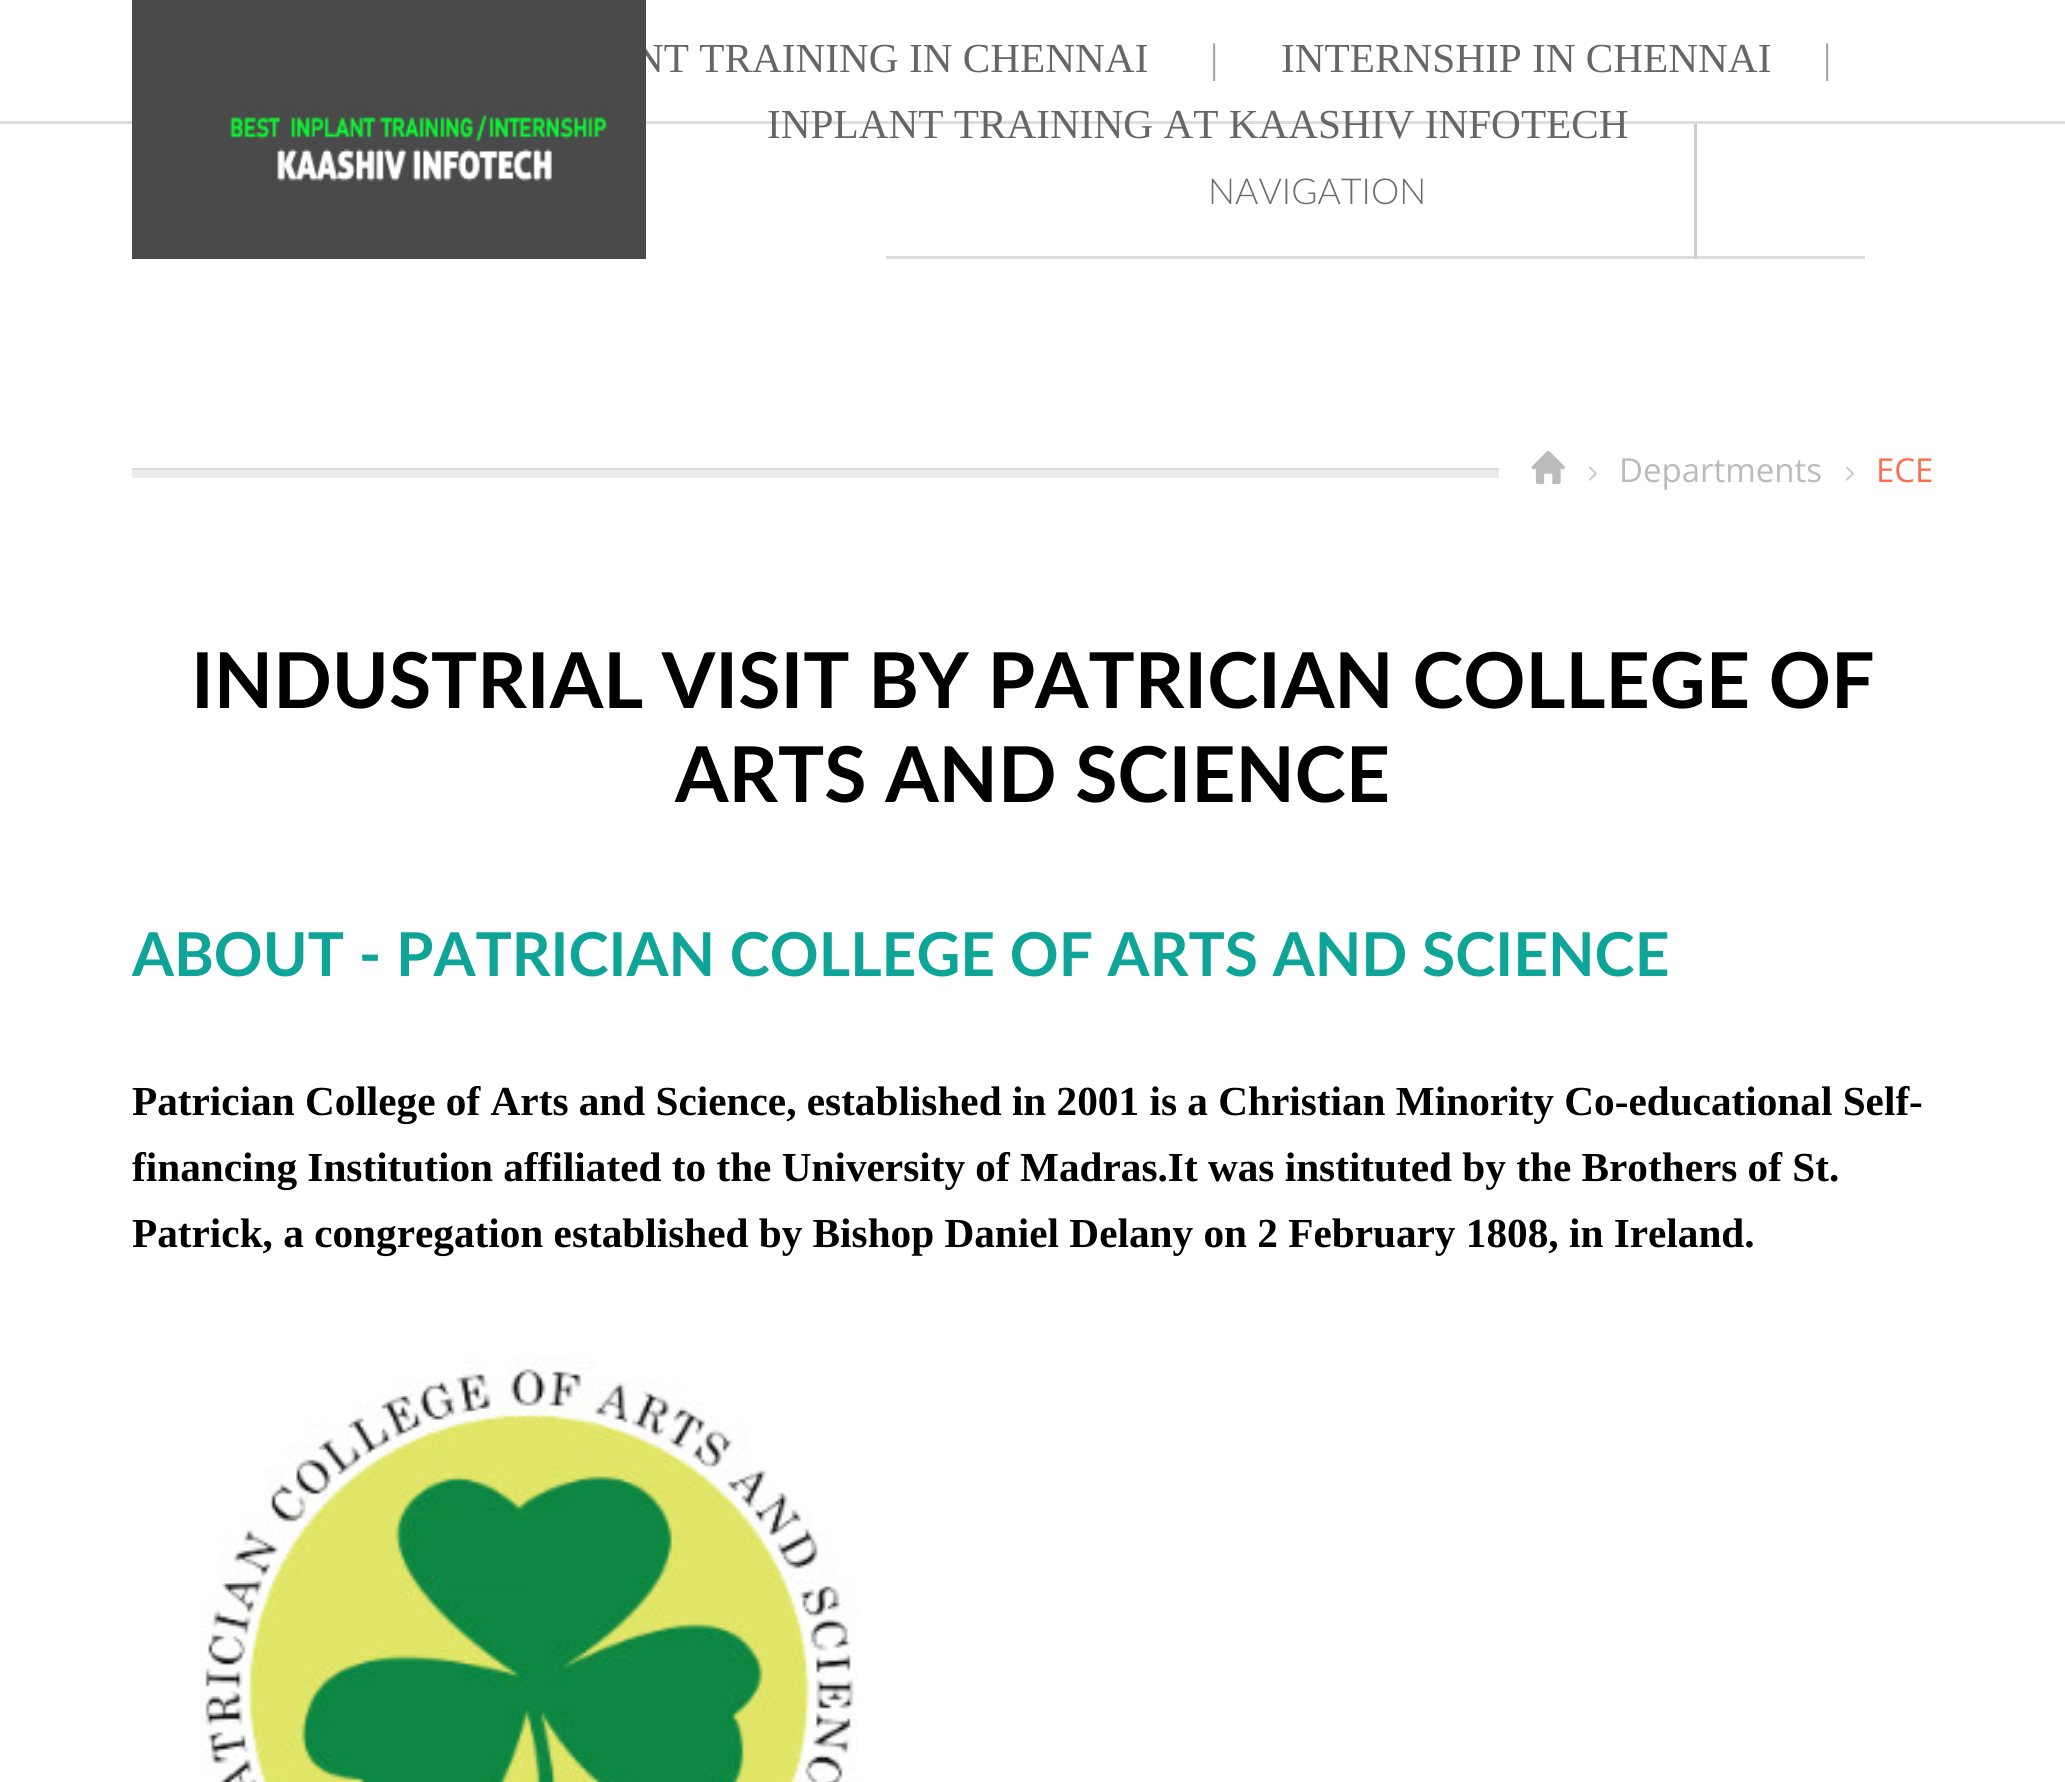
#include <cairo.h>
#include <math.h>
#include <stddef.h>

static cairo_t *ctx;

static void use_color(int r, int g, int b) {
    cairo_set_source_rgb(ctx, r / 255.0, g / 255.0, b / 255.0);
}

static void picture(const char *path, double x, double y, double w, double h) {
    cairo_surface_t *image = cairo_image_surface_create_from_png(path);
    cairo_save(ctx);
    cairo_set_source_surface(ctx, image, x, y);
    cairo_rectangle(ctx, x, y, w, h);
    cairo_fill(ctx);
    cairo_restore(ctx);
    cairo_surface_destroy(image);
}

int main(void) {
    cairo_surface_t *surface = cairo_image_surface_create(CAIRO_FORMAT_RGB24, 2065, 1782);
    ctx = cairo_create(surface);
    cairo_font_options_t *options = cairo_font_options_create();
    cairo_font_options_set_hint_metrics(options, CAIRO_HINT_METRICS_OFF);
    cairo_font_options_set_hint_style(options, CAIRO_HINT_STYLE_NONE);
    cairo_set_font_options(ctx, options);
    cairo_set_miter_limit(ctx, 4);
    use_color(255, 255, 255);
    cairo_paint(ctx);
    use_color(221, 221, 221);
    cairo_rectangle(ctx, 0, 121, 2065, 3);
    cairo_fill(ctx);
    cairo_select_font_face(ctx, "Liberation Serif", CAIRO_FONT_SLANT_NORMAL, CAIRO_FONT_WEIGHT_NORMAL);
    cairo_set_font_size(ctx, 41.25);
    use_color(102, 102, 102);
    cairo_move_to(ctx, 634, 72);
    cairo_show_text(ctx, "NT TRAINING IN CHENNAI");
    use_color(162, 162, 162);
    cairo_move_to(ctx, 1210, 72);
    cairo_show_text(ctx, "|");
    use_color(102, 102, 102);
    cairo_move_to(ctx, 1281, 72);
    cairo_show_text(ctx, "INTERNSHIP IN CHENNAI");
    use_color(162, 162, 162);
    cairo_move_to(ctx, 1823, 72);
    cairo_show_text(ctx, "|");
    use_color(102, 102, 102);
    cairo_move_to(ctx, 767, 138);
    cairo_show_text(ctx, "INPLANT TRAINING AT KAASHIV INFOTECH");
    use_color(74, 74, 74);
    cairo_rectangle(ctx, 132, 0, 514, 259);
    cairo_fill(ctx);
    picture("img1.png", 230, 108, 377, 74);
    use_color(221, 221, 221);
    cairo_rectangle(ctx, 886, 256, 979, 3);
    cairo_fill(ctx);
    use_color(204, 204, 204);
    cairo_rectangle(ctx, 1694, 124, 3, 135);
    cairo_fill(ctx);
    cairo_select_font_face(ctx, "Lato Light", CAIRO_FONT_SLANT_NORMAL, CAIRO_FONT_WEIGHT_NORMAL);
    cairo_set_font_size(ctx, 35.75);
    use_color(109, 109, 109);
    cairo_move_to(ctx, 1208, 204);
    cairo_show_text(ctx, "NAVIGATION");
    use_color(218, 218, 218);
    cairo_rectangle(ctx, 132, 468, 1367, 2);
    cairo_fill(ctx);
    use_color(235, 235, 235);
    cairo_rectangle(ctx, 132, 470, 1367, 8);
    cairo_fill(ctx);
    picture("img2.png", 1531, 451, 34, 33);
    cairo_select_font_face(ctx, "Rationale", CAIRO_FONT_SLANT_NORMAL, CAIRO_FONT_WEIGHT_NORMAL);
    cairo_set_font_size(ctx, 33);
    use_color(201, 201, 201);
    cairo_move_to(ctx, 1587, 485);
    cairo_show_text(ctx, ">");
    cairo_select_font_face(ctx, "Open Sans", CAIRO_FONT_SLANT_NORMAL, CAIRO_FONT_WEIGHT_NORMAL);
    use_color(187, 187, 187);
    cairo_move_to(ctx, 1619, 482);
    cairo_show_text(ctx, "Departments");
    cairo_select_font_face(ctx, "Rationale", CAIRO_FONT_SLANT_NORMAL, CAIRO_FONT_WEIGHT_NORMAL);
    use_color(201, 201, 201);
    cairo_move_to(ctx, 1844, 485);
    cairo_show_text(ctx, ">");
    cairo_select_font_face(ctx, "Open Sans", CAIRO_FONT_SLANT_NORMAL, CAIRO_FONT_WEIGHT_NORMAL);
    use_color(253, 109, 82);
    cairo_move_to(ctx, 1876, 482);
    cairo_show_text(ctx, "ECE");
    cairo_select_font_face(ctx, "Lato", CAIRO_FONT_SLANT_NORMAL, CAIRO_FONT_WEIGHT_BOLD);
    cairo_set_font_size(ctx, 77);
    use_color(0, 0, 0);
    cairo_move_to(ctx, 191, 708);
    cairo_show_text(ctx, "INDUSTRIAL VISIT BY PATRICIAN COLLEGE OF");
    cairo_move_to(ctx, 675, 802);
    cairo_show_text(ctx, "ARTS AND SCIENCE");
    cairo_set_font_size(ctx, 60.5);
    use_color(14, 165, 152);
    cairo_move_to(ctx, 132, 976);
    cairo_show_text(ctx, "ABOUT - PATRICIAN COLLEGE OF ARTS AND SCIENCE");
    cairo_select_font_face(ctx, "Liberation Serif", CAIRO_FONT_SLANT_NORMAL, CAIRO_FONT_WEIGHT_BOLD);
    cairo_set_font_size(ctx, 41.25);
    use_color(0, 0, 0);
    cairo_move_to(ctx, 132, 1115);
    cairo_show_text(ctx, "Patrician College of Arts and Science, established in 2001 is a Christian Minority Co-educational Self-");
    cairo_move_to(ctx, 132, 1181);
    cairo_show_text(ctx, "financing Institution affiliated to the University of Madras.It was instituted by the Brothers of St.");
    cairo_move_to(ctx, 132, 1247);
    cairo_show_text(ctx, "Patrick, a congregation established by Bishop Daniel Delany on 2 February 1808, in Ireland.");
    picture("img3.png", 199, 1356, 659, 426);
    cairo_surface_write_to_png(surface, "result.png");
    cairo_font_options_destroy(options);
    cairo_destroy(ctx);
    cairo_surface_destroy(surface);
    return 0;
}
